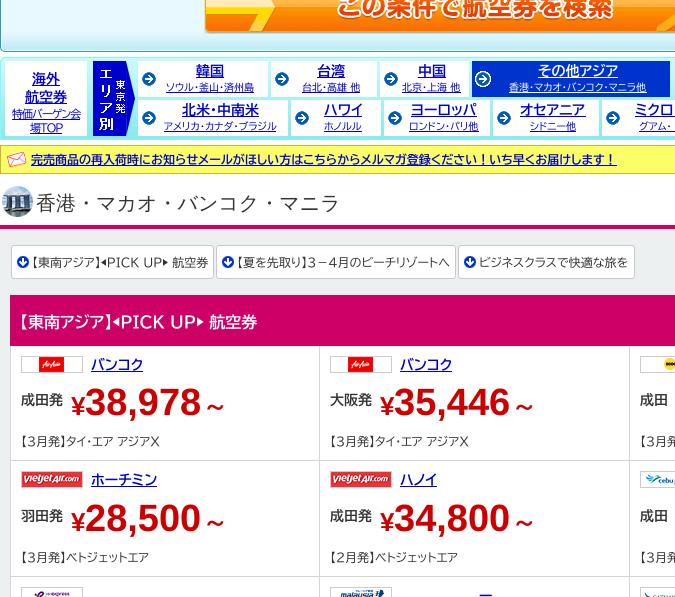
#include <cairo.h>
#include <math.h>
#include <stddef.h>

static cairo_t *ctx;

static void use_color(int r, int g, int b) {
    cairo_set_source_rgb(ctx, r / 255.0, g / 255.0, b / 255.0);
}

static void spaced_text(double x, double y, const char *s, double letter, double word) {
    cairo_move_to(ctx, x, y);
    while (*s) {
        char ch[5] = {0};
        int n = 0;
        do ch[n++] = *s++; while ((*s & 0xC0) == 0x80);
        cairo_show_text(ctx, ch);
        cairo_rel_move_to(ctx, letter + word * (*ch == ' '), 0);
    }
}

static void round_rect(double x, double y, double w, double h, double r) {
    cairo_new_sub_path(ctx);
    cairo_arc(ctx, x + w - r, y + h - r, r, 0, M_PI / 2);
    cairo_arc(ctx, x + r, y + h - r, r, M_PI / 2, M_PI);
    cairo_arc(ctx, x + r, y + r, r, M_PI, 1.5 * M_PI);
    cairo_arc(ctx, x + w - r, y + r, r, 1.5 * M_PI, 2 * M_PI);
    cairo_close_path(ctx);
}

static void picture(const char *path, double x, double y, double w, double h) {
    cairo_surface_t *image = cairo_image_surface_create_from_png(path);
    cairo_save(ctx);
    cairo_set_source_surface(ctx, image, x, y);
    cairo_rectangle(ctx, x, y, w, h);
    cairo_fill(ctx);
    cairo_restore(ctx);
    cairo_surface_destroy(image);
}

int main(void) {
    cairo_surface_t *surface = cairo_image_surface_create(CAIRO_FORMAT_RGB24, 675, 597);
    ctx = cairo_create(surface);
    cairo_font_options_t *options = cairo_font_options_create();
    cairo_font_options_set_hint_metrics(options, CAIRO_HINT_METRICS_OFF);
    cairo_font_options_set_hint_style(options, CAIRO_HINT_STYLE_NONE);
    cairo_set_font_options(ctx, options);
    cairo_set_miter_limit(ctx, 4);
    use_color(255, 255, 255);
    cairo_paint(ctx);
    picture("img1.png", 0, 0, 204, 32);
    picture("img2.png", 0, 32, 675, 20);
    picture("img3.png", 204, 0, 471, 34);
    picture("img4.png", 0, 57, 675, 83);
    use_color(255, 255, 255);
    cairo_rectangle(ctx, 5, 61, 82, 75);
    cairo_fill(ctx);
    use_color(0, 0, 204);
    cairo_rectangle(ctx, 32, 85, 28, 1);
    cairo_fill(ctx);
    cairo_select_font_face(ctx, "BIZ UDPGothic", CAIRO_FONT_SLANT_NORMAL, CAIRO_FONT_WEIGHT_BOLD);
    cairo_set_font_size(ctx, 14);
    cairo_move_to(ctx, 32, 84);
    cairo_show_text(ctx, "海外");
    cairo_rectangle(ctx, 25, 103, 42, 1);
    cairo_fill(ctx);
    cairo_move_to(ctx, 25, 102);
    cairo_show_text(ctx, "航空券");
    cairo_rectangle(ctx, 12, 119, 68, 1);
    cairo_fill(ctx);
    cairo_select_font_face(ctx, "BIZ UDPGothic", CAIRO_FONT_SLANT_NORMAL, CAIRO_FONT_WEIGHT_NORMAL);
    cairo_set_font_size(ctx, 11);
    spaced_text(12, 118, "特価バーゲン会", -1, 0);
    spaced_text(30, 132, "場TOP", -1, 0);
    cairo_rectangle(ctx, 30, 133, 32, 1);
    cairo_fill(ctx);
    picture("img5.png", 93, 61, 42, 75);
    use_color(255, 255, 255);
    cairo_rectangle(ctx, 138, 61, 130, 36);
    cairo_fill(ctx);
    picture("img6.png", 142, 72, 14, 14);
    use_color(0, 0, 204);
    cairo_rectangle(ctx, 196, 77, 28, 1);
    cairo_fill(ctx);
    cairo_select_font_face(ctx, "BIZ UDPGothic", CAIRO_FONT_SLANT_NORMAL, CAIRO_FONT_WEIGHT_BOLD);
    cairo_set_font_size(ctx, 14);
    cairo_move_to(ctx, 196, 76);
    cairo_show_text(ctx, "韓国");
    cairo_select_font_face(ctx, "BIZ UDPGothic", CAIRO_FONT_SLANT_NORMAL, CAIRO_FONT_WEIGHT_NORMAL);
    cairo_set_font_size(ctx, 10);
    cairo_move_to(ctx, 166, 91);
    cairo_show_text(ctx, "ソウル・釜山・済州島");
    cairo_rectangle(ctx, 166, 92, 88, 1);
    cairo_fill(ctx);
    use_color(255, 255, 255);
    cairo_rectangle(ctx, 271, 61, 106, 36);
    cairo_fill(ctx);
    picture("img6.png", 275, 72, 14, 14);
    use_color(0, 0, 204);
    cairo_rectangle(ctx, 317, 77, 28, 1);
    cairo_fill(ctx);
    cairo_select_font_face(ctx, "BIZ UDPGothic", CAIRO_FONT_SLANT_NORMAL, CAIRO_FONT_WEIGHT_BOLD);
    cairo_set_font_size(ctx, 14);
    cairo_move_to(ctx, 317, 76);
    cairo_show_text(ctx, "台湾");
    cairo_select_font_face(ctx, "BIZ UDPGothic", CAIRO_FONT_SLANT_NORMAL, CAIRO_FONT_WEIGHT_NORMAL);
    cairo_set_font_size(ctx, 10);
    cairo_move_to(ctx, 302, 91);
    cairo_show_text(ctx, "台北・高雄 他");
    cairo_rectangle(ctx, 302, 92, 58, 1);
    cairo_fill(ctx);
    use_color(255, 255, 255);
    cairo_rectangle(ctx, 380, 61, 89, 36);
    cairo_fill(ctx);
    picture("img6.png", 384, 72, 14, 14);
    use_color(0, 0, 204);
    cairo_rectangle(ctx, 418, 77, 28, 1);
    cairo_fill(ctx);
    cairo_select_font_face(ctx, "BIZ UDPGothic", CAIRO_FONT_SLANT_NORMAL, CAIRO_FONT_WEIGHT_BOLD);
    cairo_set_font_size(ctx, 14);
    cairo_move_to(ctx, 418, 76);
    cairo_show_text(ctx, "中国");
    cairo_select_font_face(ctx, "BIZ UDPGothic", CAIRO_FONT_SLANT_NORMAL, CAIRO_FONT_WEIGHT_NORMAL);
    cairo_set_font_size(ctx, 10);
    cairo_move_to(ctx, 402, 91);
    cairo_show_text(ctx, "北京・上海 他");
    cairo_rectangle(ctx, 402, 92, 59, 1);
    cairo_fill(ctx);
    use_color(0, 51, 204);
    cairo_rectangle(ctx, 472, 61, 198, 36);
    cairo_fill(ctx);
    picture("img7.png", 475, 71, 16, 16);
    use_color(255, 255, 255);
    cairo_rectangle(ctx, 538, 77, 80, 1);
    cairo_fill(ctx);
    cairo_select_font_face(ctx, "BIZ UDPGothic", CAIRO_FONT_SLANT_NORMAL, CAIRO_FONT_WEIGHT_BOLD);
    cairo_set_font_size(ctx, 14);
    cairo_move_to(ctx, 538, 76);
    cairo_show_text(ctx, "その他アジア");
    cairo_select_font_face(ctx, "BIZ UDPGothic", CAIRO_FONT_SLANT_NORMAL, CAIRO_FONT_WEIGHT_NORMAL);
    cairo_set_font_size(ctx, 10);
    cairo_move_to(ctx, 509, 91);
    cairo_show_text(ctx, "香港・マカオ・バンコク・マニラ他");
    cairo_rectangle(ctx, 509, 92, 138, 1);
    cairo_fill(ctx);
    cairo_rectangle(ctx, 138, 100, 150, 36);
    cairo_fill(ctx);
    picture("img6.png", 142, 111, 14, 14);
    use_color(0, 0, 204);
    cairo_rectangle(ctx, 182, 116, 77, 1);
    cairo_fill(ctx);
    cairo_select_font_face(ctx, "BIZ UDPGothic", CAIRO_FONT_SLANT_NORMAL, CAIRO_FONT_WEIGHT_BOLD);
    cairo_set_font_size(ctx, 14);
    cairo_move_to(ctx, 182, 115);
    cairo_show_text(ctx, "北米・中南米");
    cairo_select_font_face(ctx, "BIZ UDPGothic", CAIRO_FONT_SLANT_NORMAL, CAIRO_FONT_WEIGHT_NORMAL);
    cairo_set_font_size(ctx, 10);
    cairo_move_to(ctx, 164, 130);
    cairo_show_text(ctx, "アメリカ・カナダ・ブラジル");
    cairo_rectangle(ctx, 164, 131, 112, 1);
    cairo_fill(ctx);
    use_color(255, 255, 255);
    cairo_rectangle(ctx, 291, 100, 90, 36);
    cairo_fill(ctx);
    picture("img6.png", 295, 111, 14, 14);
    cairo_select_font_face(ctx, "BIZ UDPGothic", CAIRO_FONT_SLANT_NORMAL, CAIRO_FONT_WEIGHT_BOLD);
    cairo_set_font_size(ctx, 14);
    use_color(0, 0, 204);
    cairo_move_to(ctx, 324, 115);
    cairo_show_text(ctx, "ハワイ");
    cairo_rectangle(ctx, 324, 116, 38, 1);
    cairo_fill(ctx);
    cairo_select_font_face(ctx, "BIZ UDPGothic", CAIRO_FONT_SLANT_NORMAL, CAIRO_FONT_WEIGHT_NORMAL);
    cairo_set_font_size(ctx, 10);
    cairo_move_to(ctx, 324, 130);
    cairo_show_text(ctx, "ホノルル");
    cairo_rectangle(ctx, 324, 131, 38, 1);
    cairo_fill(ctx);
    use_color(255, 255, 255);
    cairo_rectangle(ctx, 384, 100, 106, 36);
    cairo_fill(ctx);
    picture("img6.png", 388, 111, 14, 14);
    cairo_select_font_face(ctx, "BIZ UDPGothic", CAIRO_FONT_SLANT_NORMAL, CAIRO_FONT_WEIGHT_BOLD);
    cairo_set_font_size(ctx, 14);
    use_color(0, 0, 204);
    cairo_move_to(ctx, 411, 115);
    cairo_show_text(ctx, "ヨーロッパ");
    cairo_rectangle(ctx, 411, 116, 66, 1);
    cairo_fill(ctx);
    cairo_select_font_face(ctx, "BIZ UDPGothic", CAIRO_FONT_SLANT_NORMAL, CAIRO_FONT_WEIGHT_NORMAL);
    cairo_set_font_size(ctx, 10);
    cairo_move_to(ctx, 409, 130);
    cairo_show_text(ctx, "ロンドン・パリ他");
    cairo_rectangle(ctx, 409, 131, 70, 1);
    cairo_fill(ctx);
    use_color(255, 255, 255);
    cairo_rectangle(ctx, 493, 100, 106, 36);
    cairo_fill(ctx);
    picture("img6.png", 497, 111, 14, 14);
    cairo_select_font_face(ctx, "BIZ UDPGothic", CAIRO_FONT_SLANT_NORMAL, CAIRO_FONT_WEIGHT_BOLD);
    cairo_set_font_size(ctx, 14);
    use_color(0, 0, 204);
    cairo_move_to(ctx, 520, 115);
    cairo_show_text(ctx, "オセアニア");
    cairo_rectangle(ctx, 520, 116, 66, 1);
    cairo_fill(ctx);
    cairo_select_font_face(ctx, "BIZ UDPGothic", CAIRO_FONT_SLANT_NORMAL, CAIRO_FONT_WEIGHT_NORMAL);
    cairo_set_font_size(ctx, 10);
    cairo_move_to(ctx, 530, 130);
    cairo_show_text(ctx, "シドニー他");
    cairo_rectangle(ctx, 530, 131, 46, 1);
    cairo_fill(ctx);
    use_color(255, 255, 255);
    cairo_rectangle(ctx, 602, 100, 73, 36);
    cairo_fill(ctx);
    picture("img6.png", 606, 111, 14, 14);
    cairo_select_font_face(ctx, "BIZ UDPGothic", CAIRO_FONT_SLANT_NORMAL, CAIRO_FONT_WEIGHT_BOLD);
    cairo_set_font_size(ctx, 14);
    use_color(0, 0, 204);
    cairo_move_to(ctx, 635, 115);
    cairo_show_text(ctx, "ミクロ");
    cairo_rectangle(ctx, 635, 116, 40, 1);
    cairo_fill(ctx);
    cairo_select_font_face(ctx, "BIZ UDPGothic", CAIRO_FONT_SLANT_NORMAL, CAIRO_FONT_WEIGHT_NORMAL);
    cairo_set_font_size(ctx, 10);
    cairo_move_to(ctx, 639, 130);
    cairo_show_text(ctx, "グアム・");
    cairo_rectangle(ctx, 639, 131, 36, 1);
    cairo_fill(ctx);
    use_color(250, 255, 104);
    cairo_rectangle(ctx, 0.5, 145.5, 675, 28);
    cairo_fill_preserve(ctx);
    use_color(208, 175, 60);
    cairo_set_line_width(ctx, 1);
    cairo_stroke(ctx);
    picture("img8.png", 7, 151, 20, 17);
    use_color(0, 0, 204);
    cairo_rectangle(ctx, 31, 165, 586, 1);
    cairo_fill(ctx);
    cairo_select_font_face(ctx, "BIZ UDPGothic", CAIRO_FONT_SLANT_NORMAL, CAIRO_FONT_WEIGHT_BOLD);
    cairo_set_font_size(ctx, 12);
    cairo_move_to(ctx, 31, 164);
    cairo_show_text(ctx, "完売商品の再入荷時にお知らせメールがほしい方はこちらからメルマガ登録ください！いち早くお届けします！");
    picture("img9.png", 2, 186, 31, 31);
    cairo_select_font_face(ctx, "WenQuanYi Zen Hei Medium", CAIRO_FONT_SLANT_NORMAL, CAIRO_FONT_WEIGHT_NORMAL);
    cairo_set_font_size(ctx, 20);
    use_color(51, 51, 51);
    cairo_move_to(ctx, 36, 210);
    cairo_show_text(ctx, "香港・マカオ・バンコク・マニラ");
    use_color(236, 240, 241);
    cairo_rectangle(ctx, 0, 229, 675, 368);
    cairo_fill(ctx);
    use_color(205, 0, 103);
    cairo_rectangle(ctx, 0, 225, 675, 4);
    cairo_fill(ctx);
    use_color(255, 255, 255);
    round_rect(11.5, 245.5, 202, 33, 2.5);
    cairo_fill_preserve(ctx);
    use_color(201, 201, 201);
    cairo_stroke(ctx);
    picture("img10.png", 17, 256, 12, 12);
    cairo_select_font_face(ctx, "BIZ UDPGothic", CAIRO_FONT_SLANT_NORMAL, CAIRO_FONT_WEIGHT_NORMAL);
    cairo_set_font_size(ctx, 12);
    use_color(51, 51, 51);
    cairo_move_to(ctx, 32, 267);
    cairo_show_text(ctx, "【東南アジア】◀PICK UP▶ 航空券");
    use_color(255, 255, 255);
    round_rect(216.5, 245.5, 239, 33, 2.5);
    cairo_fill_preserve(ctx);
    use_color(201, 201, 201);
    cairo_stroke(ctx);
    picture("img10.png", 222, 256, 12, 12);
    use_color(51, 51, 51);
    cairo_move_to(ctx, 237, 267);
    cairo_show_text(ctx, "【夏を先取り】3－4月のビーチリゾートへ");
    use_color(255, 255, 255);
    round_rect(458.5, 245.5, 176, 33, 2.5);
    cairo_fill_preserve(ctx);
    use_color(201, 201, 201);
    cairo_stroke(ctx);
    picture("img10.png", 464, 256, 12, 12);
    use_color(51, 51, 51);
    cairo_move_to(ctx, 479, 267);
    cairo_show_text(ctx, "ビジネスクラスで快適な旅を");
    use_color(255, 255, 255);
    cairo_rectangle(ctx, 11, 346, 664, 251);
    cairo_fill(ctx);
    use_color(205, 0, 103);
    cairo_rectangle(ctx, 10, 295, 665, 51);
    cairo_fill(ctx);
    cairo_select_font_face(ctx, "BIZ UDPGothic", CAIRO_FONT_SLANT_NORMAL, CAIRO_FONT_WEIGHT_BOLD);
    cairo_set_font_size(ctx, 16);
    use_color(255, 255, 255);
    cairo_move_to(ctx, 20, 328);
    cairo_show_text(ctx, "【東南アジア】◀PICK UP▶ 航空券");
    use_color(213, 213, 213);
    cairo_rectangle(ctx, 319, 346, 1, 251);
    cairo_fill(ctx);
    cairo_rectangle(ctx, 10, 460, 310, 1);
    cairo_fill(ctx);
    cairo_rectangle(ctx, 10, 346, 1, 115);
    cairo_fill(ctx);
    cairo_rectangle(ctx, 21.5, 356.5, 61, 16);
    use_color(204, 204, 204);
    cairo_stroke(ctx);
    picture("img11.png", 39, 357, 25, 15);
    cairo_set_font_size(ctx, 14);
    use_color(0, 0, 204);
    cairo_move_to(ctx, 91, 370);
    cairo_show_text(ctx, "バンコク");
    cairo_rectangle(ctx, 91, 371, 52, 1);
    cairo_fill(ctx);
    use_color(51, 51, 51);
    cairo_move_to(ctx, 21, 405);
    cairo_show_text(ctx, "成田発");
    cairo_select_font_face(ctx, "Liberation Sans", CAIRO_FONT_SLANT_NORMAL, CAIRO_FONT_WEIGHT_BOLD);
    cairo_set_font_size(ctx, 26);
    use_color(204, 0, 1);
    cairo_move_to(ctx, 71, 415);
    cairo_show_text(ctx, "¥");
    cairo_set_font_size(ctx, 38);
    cairo_move_to(ctx, 85, 415);
    cairo_show_text(ctx, "38,978");
    cairo_select_font_face(ctx, "WenQuanYi Zen Hei", CAIRO_FONT_SLANT_NORMAL, CAIRO_FONT_WEIGHT_BOLD);
    cairo_set_font_size(ctx, 26);
    cairo_move_to(ctx, 202, 415);
    cairo_show_text(ctx, "～");
    cairo_select_font_face(ctx, "BIZ UDPGothic", CAIRO_FONT_SLANT_NORMAL, CAIRO_FONT_WEIGHT_NORMAL);
    cairo_set_font_size(ctx, 12);
    use_color(51, 51, 51);
    cairo_move_to(ctx, 21, 446);
    cairo_show_text(ctx, "【3月発】タイ・エア アジアX");
    use_color(213, 213, 213);
    cairo_rectangle(ctx, 629, 346, 1, 251);
    cairo_fill(ctx);
    cairo_rectangle(ctx, 320, 460, 355, 1);
    cairo_fill(ctx);
    cairo_rectangle(ctx, 330.5, 356.5, 61, 16);
    use_color(204, 204, 204);
    cairo_stroke(ctx);
    picture("img11.png", 348, 357, 25, 15);
    cairo_select_font_face(ctx, "BIZ UDPGothic", CAIRO_FONT_SLANT_NORMAL, CAIRO_FONT_WEIGHT_BOLD);
    cairo_set_font_size(ctx, 14);
    use_color(0, 0, 204);
    cairo_move_to(ctx, 400, 370);
    cairo_show_text(ctx, "バンコク");
    cairo_rectangle(ctx, 400, 371, 52, 1);
    cairo_fill(ctx);
    use_color(51, 51, 51);
    cairo_move_to(ctx, 330, 405);
    cairo_show_text(ctx, "大阪発");
    cairo_select_font_face(ctx, "Liberation Sans", CAIRO_FONT_SLANT_NORMAL, CAIRO_FONT_WEIGHT_BOLD);
    cairo_set_font_size(ctx, 26);
    use_color(204, 0, 1);
    cairo_move_to(ctx, 380, 415);
    cairo_show_text(ctx, "¥");
    cairo_set_font_size(ctx, 38);
    cairo_move_to(ctx, 394, 415);
    cairo_show_text(ctx, "35,446");
    cairo_select_font_face(ctx, "WenQuanYi Zen Hei", CAIRO_FONT_SLANT_NORMAL, CAIRO_FONT_WEIGHT_BOLD);
    cairo_set_font_size(ctx, 26);
    cairo_move_to(ctx, 511, 415);
    cairo_show_text(ctx, "～");
    cairo_select_font_face(ctx, "BIZ UDPGothic", CAIRO_FONT_SLANT_NORMAL, CAIRO_FONT_WEIGHT_NORMAL);
    cairo_set_font_size(ctx, 12);
    use_color(51, 51, 51);
    cairo_move_to(ctx, 330, 446);
    cairo_show_text(ctx, "【3月発】タイ・エア アジアX");
    cairo_rectangle(ctx, 640.5, 356.5, 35, 16);
    use_color(204, 204, 204);
    cairo_stroke(ctx);
    picture("img12.png", 664, 358, 11, 12);
    cairo_select_font_face(ctx, "BIZ UDPGothic", CAIRO_FONT_SLANT_NORMAL, CAIRO_FONT_WEIGHT_BOLD);
    cairo_set_font_size(ctx, 14);
    use_color(51, 51, 51);
    cairo_move_to(ctx, 640, 405);
    cairo_show_text(ctx, "成田");
    cairo_select_font_face(ctx, "BIZ UDPGothic", CAIRO_FONT_SLANT_NORMAL, CAIRO_FONT_WEIGHT_NORMAL);
    cairo_set_font_size(ctx, 12);
    cairo_move_to(ctx, 640, 446);
    cairo_show_text(ctx, "【3月発");
    use_color(213, 213, 213);
    cairo_rectangle(ctx, 10, 576, 665, 1);
    cairo_fill(ctx);
    cairo_rectangle(ctx, 10, 461, 1, 136);
    cairo_fill(ctx);
    cairo_rectangle(ctx, 21.5, 471.5, 61, 16);
    use_color(204, 204, 204);
    cairo_stroke(ctx);
    picture("img13.png", 22, 472, 60, 15);
    cairo_select_font_face(ctx, "BIZ UDPGothic", CAIRO_FONT_SLANT_NORMAL, CAIRO_FONT_WEIGHT_BOLD);
    cairo_set_font_size(ctx, 14);
    use_color(0, 0, 204);
    cairo_move_to(ctx, 91, 485);
    cairo_show_text(ctx, "ホーチミン");
    cairo_rectangle(ctx, 91, 486, 66, 1);
    cairo_fill(ctx);
    use_color(51, 51, 51);
    cairo_move_to(ctx, 21, 521);
    cairo_show_text(ctx, "羽田発");
    cairo_select_font_face(ctx, "Liberation Sans", CAIRO_FONT_SLANT_NORMAL, CAIRO_FONT_WEIGHT_BOLD);
    cairo_set_font_size(ctx, 26);
    use_color(204, 0, 1);
    cairo_move_to(ctx, 71, 531);
    cairo_show_text(ctx, "¥");
    cairo_set_font_size(ctx, 38);
    cairo_move_to(ctx, 85, 531);
    cairo_show_text(ctx, "28,500");
    cairo_select_font_face(ctx, "WenQuanYi Zen Hei", CAIRO_FONT_SLANT_NORMAL, CAIRO_FONT_WEIGHT_BOLD);
    cairo_set_font_size(ctx, 26);
    cairo_move_to(ctx, 202, 531);
    cairo_show_text(ctx, "～");
    cairo_select_font_face(ctx, "BIZ UDPGothic", CAIRO_FONT_SLANT_NORMAL, CAIRO_FONT_WEIGHT_NORMAL);
    cairo_set_font_size(ctx, 12);
    use_color(51, 51, 51);
    cairo_move_to(ctx, 21, 562);
    cairo_show_text(ctx, "【3月発】ベトジェットエア");
    cairo_rectangle(ctx, 330.5, 471.5, 61, 16);
    use_color(204, 204, 204);
    cairo_stroke(ctx);
    picture("img13.png", 331, 472, 60, 15);
    cairo_select_font_face(ctx, "BIZ UDPGothic", CAIRO_FONT_SLANT_NORMAL, CAIRO_FONT_WEIGHT_BOLD);
    cairo_set_font_size(ctx, 14);
    use_color(0, 0, 204);
    cairo_move_to(ctx, 400, 485);
    cairo_show_text(ctx, "ハノイ");
    cairo_rectangle(ctx, 400, 486, 37, 1);
    cairo_fill(ctx);
    use_color(51, 51, 51);
    cairo_move_to(ctx, 330, 521);
    cairo_show_text(ctx, "成田発");
    cairo_select_font_face(ctx, "Liberation Sans", CAIRO_FONT_SLANT_NORMAL, CAIRO_FONT_WEIGHT_BOLD);
    cairo_set_font_size(ctx, 26);
    use_color(204, 0, 1);
    cairo_move_to(ctx, 380, 531);
    cairo_show_text(ctx, "¥");
    cairo_set_font_size(ctx, 38);
    cairo_move_to(ctx, 394, 531);
    cairo_show_text(ctx, "34,800");
    cairo_select_font_face(ctx, "WenQuanYi Zen Hei", CAIRO_FONT_SLANT_NORMAL, CAIRO_FONT_WEIGHT_BOLD);
    cairo_set_font_size(ctx, 26);
    cairo_move_to(ctx, 511, 531);
    cairo_show_text(ctx, "～");
    cairo_select_font_face(ctx, "BIZ UDPGothic", CAIRO_FONT_SLANT_NORMAL, CAIRO_FONT_WEIGHT_NORMAL);
    cairo_set_font_size(ctx, 12);
    use_color(51, 51, 51);
    cairo_move_to(ctx, 330, 562);
    cairo_show_text(ctx, "【2月発】ベトジェットエア");
    cairo_rectangle(ctx, 640.5, 471.5, 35, 16);
    use_color(204, 204, 204);
    cairo_stroke(ctx);
    picture("img14.png", 645, 474, 30, 11);
    cairo_select_font_face(ctx, "BIZ UDPGothic", CAIRO_FONT_SLANT_NORMAL, CAIRO_FONT_WEIGHT_BOLD);
    cairo_set_font_size(ctx, 14);
    use_color(51, 51, 51);
    cairo_move_to(ctx, 640, 521);
    cairo_show_text(ctx, "成田");
    cairo_select_font_face(ctx, "BIZ UDPGothic", CAIRO_FONT_SLANT_NORMAL, CAIRO_FONT_WEIGHT_NORMAL);
    cairo_set_font_size(ctx, 12);
    cairo_move_to(ctx, 640, 562);
    cairo_show_text(ctx, "【3月発");
    cairo_rectangle(ctx, 21.5, 587.5, 61, 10);
    use_color(204, 204, 204);
    cairo_stroke(ctx);
    picture("img15.png", 34, 591, 36, 6);
    cairo_rectangle(ctx, 330.5, 587.5, 61, 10);
    cairo_stroke(ctx);
    picture("img16.png", 340, 589, 45, 8);
    cairo_select_font_face(ctx, "BIZ UDPGothic", CAIRO_FONT_SLANT_NORMAL, CAIRO_FONT_WEIGHT_BOLD);
    cairo_set_font_size(ctx, 14);
    use_color(0, 0, 204);
    cairo_move_to(ctx, 479, 601);
    cairo_show_text(ctx, "ー");
    cairo_rectangle(ctx, 640.5, 587.5, 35, 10);
    use_color(204, 204, 204);
    cairo_stroke(ctx);
    picture("img17.png", 644, 592, 31, 5);
    cairo_surface_write_to_png(surface, "result.png");
    cairo_font_options_destroy(options);
    cairo_destroy(ctx);
    cairo_surface_destroy(surface);
    return 0;
}
